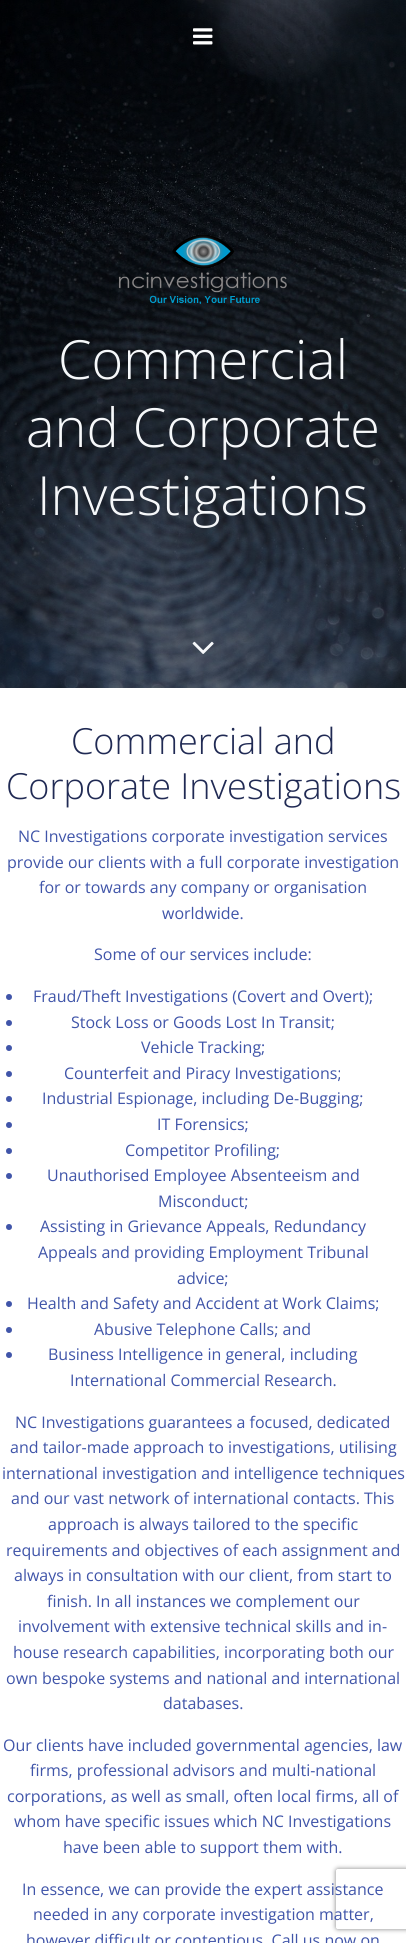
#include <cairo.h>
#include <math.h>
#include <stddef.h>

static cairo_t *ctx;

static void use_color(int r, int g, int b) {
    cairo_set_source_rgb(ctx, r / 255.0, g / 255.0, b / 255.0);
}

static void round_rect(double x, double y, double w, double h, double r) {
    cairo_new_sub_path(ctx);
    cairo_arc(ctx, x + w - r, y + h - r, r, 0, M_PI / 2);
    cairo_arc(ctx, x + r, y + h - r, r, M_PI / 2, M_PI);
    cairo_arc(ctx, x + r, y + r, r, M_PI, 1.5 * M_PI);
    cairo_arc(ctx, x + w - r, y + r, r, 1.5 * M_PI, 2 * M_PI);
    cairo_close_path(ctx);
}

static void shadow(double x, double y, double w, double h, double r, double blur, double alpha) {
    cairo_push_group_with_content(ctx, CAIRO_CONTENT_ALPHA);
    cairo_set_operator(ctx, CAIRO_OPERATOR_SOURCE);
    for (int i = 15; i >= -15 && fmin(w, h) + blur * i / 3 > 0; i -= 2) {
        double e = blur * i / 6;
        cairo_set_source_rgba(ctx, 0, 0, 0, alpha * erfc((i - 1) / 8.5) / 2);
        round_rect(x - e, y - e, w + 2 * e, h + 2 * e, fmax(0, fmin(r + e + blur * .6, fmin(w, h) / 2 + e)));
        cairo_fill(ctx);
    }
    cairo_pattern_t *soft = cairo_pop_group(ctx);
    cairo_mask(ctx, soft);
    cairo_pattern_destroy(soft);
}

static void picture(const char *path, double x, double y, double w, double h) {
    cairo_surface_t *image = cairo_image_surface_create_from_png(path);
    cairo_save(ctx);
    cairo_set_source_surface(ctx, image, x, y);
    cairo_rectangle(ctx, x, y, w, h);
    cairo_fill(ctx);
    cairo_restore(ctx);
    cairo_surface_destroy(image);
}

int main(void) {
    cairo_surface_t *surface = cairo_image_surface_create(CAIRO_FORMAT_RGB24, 406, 1943);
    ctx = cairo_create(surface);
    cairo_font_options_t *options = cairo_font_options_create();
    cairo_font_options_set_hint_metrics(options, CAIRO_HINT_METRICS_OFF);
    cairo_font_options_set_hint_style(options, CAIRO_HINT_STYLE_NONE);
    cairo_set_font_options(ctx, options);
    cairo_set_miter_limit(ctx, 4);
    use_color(255, 255, 255);
    cairo_paint(ctx);
    picture("img2.png", 0, 0, 406, 688);
    cairo_set_source_rgba(ctx, 0, 0, 0, 0.1);
    cairo_arc(ctx, 203, 37, 17, 0, 2 * M_PI);
    cairo_fill(ctx);
    picture("img1.png", 193, 28, 20, 17);
    picture("img3.png", 119, 234, 168, 70);
    cairo_select_font_face(ctx, "Open Sans Light", CAIRO_FONT_SLANT_NORMAL, CAIRO_FONT_WEIGHT_NORMAL);
    cairo_set_font_size(ctx, 54);
    use_color(246, 248, 250);
    cairo_move_to(ctx, 58, 379);
    cairo_show_text(ctx, "Commercial");
    cairo_move_to(ctx, 26, 447);
    cairo_show_text(ctx, "and Corporate");
    cairo_move_to(ctx, 37, 515);
    cairo_show_text(ctx, "Investigations");
    picture("img4.png", 192, 641, 22, 13);
    cairo_set_font_size(ctx, 36);
    use_color(32, 42, 84);
    cairo_move_to(ctx, 71, 754);
    cairo_show_text(ctx, "Commercial and");
    cairo_move_to(ctx, 6, 799);
    cairo_show_text(ctx, "Corporate Investigations");
    cairo_select_font_face(ctx, "Open Sans", CAIRO_FONT_SLANT_NORMAL, CAIRO_FONT_WEIGHT_NORMAL);
    cairo_set_font_size(ctx, 16);
    use_color(64, 85, 169);
    cairo_move_to(ctx, 18, 842);
    cairo_show_text(ctx, "NC Investigations corporate investigation services");
    cairo_move_to(ctx, 7, 868);
    cairo_show_text(ctx, "provide our clients with a full corporate investigation");
    cairo_move_to(ctx, 39, 893);
    cairo_show_text(ctx, "for or towards any company or organisation");
    cairo_move_to(ctx, 162, 919);
    cairo_show_text(ctx, "worldwide.");
    cairo_move_to(ctx, 94, 960);
    cairo_show_text(ctx, "Some of our services include:");
    cairo_new_path(ctx);
    cairo_arc(ctx, 9, 997, 3, 0, 2 * M_PI);
    cairo_fill(ctx);
    cairo_move_to(ctx, 33, 1002);
    cairo_show_text(ctx, "Fraud/Theft Investigations (Covert and Overt);");
    cairo_new_path(ctx);
    cairo_arc(ctx, 9, 1023, 3, 0, 2 * M_PI);
    cairo_fill(ctx);
    cairo_move_to(ctx, 71, 1028);
    cairo_show_text(ctx, "Stock Loss or Goods Lost In Transit;");
    cairo_new_path(ctx);
    cairo_arc(ctx, 9, 1048, 3, 0, 2 * M_PI);
    cairo_fill(ctx);
    cairo_move_to(ctx, 141, 1053);
    cairo_show_text(ctx, "Vehicle Tracking;");
    cairo_new_path(ctx);
    cairo_arc(ctx, 9, 1074, 3, 0, 2 * M_PI);
    cairo_fill(ctx);
    cairo_move_to(ctx, 64, 1079);
    cairo_show_text(ctx, "Counterfeit and Piracy Investigations;");
    cairo_new_path(ctx);
    cairo_arc(ctx, 9, 1099, 3, 0, 2 * M_PI);
    cairo_fill(ctx);
    cairo_move_to(ctx, 42, 1104);
    cairo_show_text(ctx, "Industrial Espionage, including De-Bugging;");
    cairo_new_path(ctx);
    cairo_arc(ctx, 9, 1125, 3, 0, 2 * M_PI);
    cairo_fill(ctx);
    cairo_move_to(ctx, 157, 1130);
    cairo_show_text(ctx, "IT Forensics;");
    cairo_new_path(ctx);
    cairo_arc(ctx, 9, 1151, 3, 0, 2 * M_PI);
    cairo_fill(ctx);
    cairo_move_to(ctx, 125, 1156);
    cairo_show_text(ctx, "Competitor Profiling;");
    cairo_new_path(ctx);
    cairo_arc(ctx, 9, 1176, 3, 0, 2 * M_PI);
    cairo_fill(ctx);
    cairo_move_to(ctx, 47, 1181);
    cairo_show_text(ctx, "Unauthorised Employee Absenteeism and");
    cairo_move_to(ctx, 158, 1207);
    cairo_show_text(ctx, "Misconduct;");
    cairo_new_path(ctx);
    cairo_arc(ctx, 9, 1227, 3, 0, 2 * M_PI);
    cairo_fill(ctx);
    cairo_move_to(ctx, 40, 1232);
    cairo_show_text(ctx, "Assisting in Grievance Appeals, Redundancy");
    cairo_move_to(ctx, 38, 1258);
    cairo_show_text(ctx, "Appeals and providing Employment Tribunal");
    cairo_move_to(ctx, 177, 1284);
    cairo_show_text(ctx, "advice;");
    cairo_new_path(ctx);
    cairo_arc(ctx, 9, 1304, 3, 0, 2 * M_PI);
    cairo_fill(ctx);
    cairo_move_to(ctx, 27, 1309);
    cairo_show_text(ctx, "Health and Safety and Accident at Work Claims;");
    cairo_new_path(ctx);
    cairo_arc(ctx, 9, 1330, 3, 0, 2 * M_PI);
    cairo_fill(ctx);
    cairo_move_to(ctx, 94, 1335);
    cairo_show_text(ctx, "Abusive Telephone Calls; and");
    cairo_new_path(ctx);
    cairo_arc(ctx, 9, 1355, 3, 0, 2 * M_PI);
    cairo_fill(ctx);
    cairo_move_to(ctx, 48, 1360);
    cairo_show_text(ctx, "Business Intelligence in general, including");
    cairo_move_to(ctx, 70, 1386);
    cairo_show_text(ctx, "International Commercial Research.");
    cairo_move_to(ctx, 15, 1428);
    cairo_show_text(ctx, "NC Investigations guarantees a focused, dedicated");
    cairo_move_to(ctx, 10, 1453);
    cairo_show_text(ctx, "and tailor-made approach to investigations, utilising");
    cairo_move_to(ctx, 2, 1479);
    cairo_show_text(ctx, "international investigation and intelligence techniques");
    cairo_move_to(ctx, 11, 1504);
    cairo_show_text(ctx, "and our vast network of international contacts. This");
    cairo_move_to(ctx, 48, 1530);
    cairo_show_text(ctx, "approach is always tailored to the specific");
    cairo_move_to(ctx, 6, 1556);
    cairo_show_text(ctx, "requirements and objectives of each assignment and");
    cairo_move_to(ctx, 14, 1581);
    cairo_show_text(ctx, "always in consultation with our client, from start to");
    cairo_move_to(ctx, 47, 1607);
    cairo_show_text(ctx, "finish. In all instances we complement our");
    cairo_move_to(ctx, 18, 1632);
    cairo_show_text(ctx, "involvement with extensive technical skills and in-");
    cairo_move_to(ctx, 13, 1658);
    cairo_show_text(ctx, "house research capabilities, incorporating both our");
    cairo_move_to(ctx, 6, 1684);
    cairo_show_text(ctx, "own bespoke systems and national and international");
    cairo_move_to(ctx, 163, 1709);
    cairo_show_text(ctx, "databases.");
    cairo_move_to(ctx, 3, 1751);
    cairo_show_text(ctx, "Our clients have included governmental agencies, law");
    cairo_move_to(ctx, 30, 1776);
    cairo_show_text(ctx, "firms, professional advisors and multi-national");
    cairo_move_to(ctx, 7, 1802);
    cairo_show_text(ctx, "corporations, as well as small, often local firms, all of");
    cairo_move_to(ctx, 14, 1827);
    cairo_show_text(ctx, "whom have specific issues which NC Investigations");
    cairo_move_to(ctx, 63, 1853);
    cairo_show_text(ctx, "have been able to support them with.");
    cairo_save(ctx);
    cairo_set_fill_rule(ctx, CAIRO_FILL_RULE_EVEN_ODD);
    cairo_new_path(ctx);
    cairo_move_to(ctx, 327, 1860);
    cairo_line_to(ctx, 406, 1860);
    cairo_line_to(ctx, 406, 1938);
    cairo_line_to(ctx, 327, 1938);
    cairo_close_path(ctx);
    cairo_move_to(ctx, 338, 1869);
    cairo_line_to(ctx, 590, 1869);
    cairo_curve_to(ctx, 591, 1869, 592, 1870, 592, 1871);
    cairo_line_to(ctx, 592, 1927);
    cairo_curve_to(ctx, 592, 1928, 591, 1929, 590, 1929);
    cairo_line_to(ctx, 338, 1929);
    cairo_curve_to(ctx, 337, 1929, 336, 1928, 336, 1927);
    cairo_line_to(ctx, 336, 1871);
    cairo_curve_to(ctx, 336, 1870, 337, 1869, 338, 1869);
    cairo_close_path(ctx);
    cairo_clip(ctx);
    use_color(128, 128, 128);
    shadow(336, 1869, 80, 60, 2, 2.5, 1);
    cairo_restore(ctx);
    cairo_move_to(ctx, 22, 1895);
    cairo_show_text(ctx, "In essence, we can provide the expert assistance");
    cairo_move_to(ctx, 33, 1920);
    cairo_show_text(ctx, "needed in any corporate investigation matter,");
    cairo_move_to(ctx, 26, 1946);
    cairo_show_text(ctx, "however difficult or contentious. Call us now on");
    cairo_surface_write_to_png(surface, "result.png");
    cairo_font_options_destroy(options);
    cairo_destroy(ctx);
    cairo_surface_destroy(surface);
    return 0;
}
